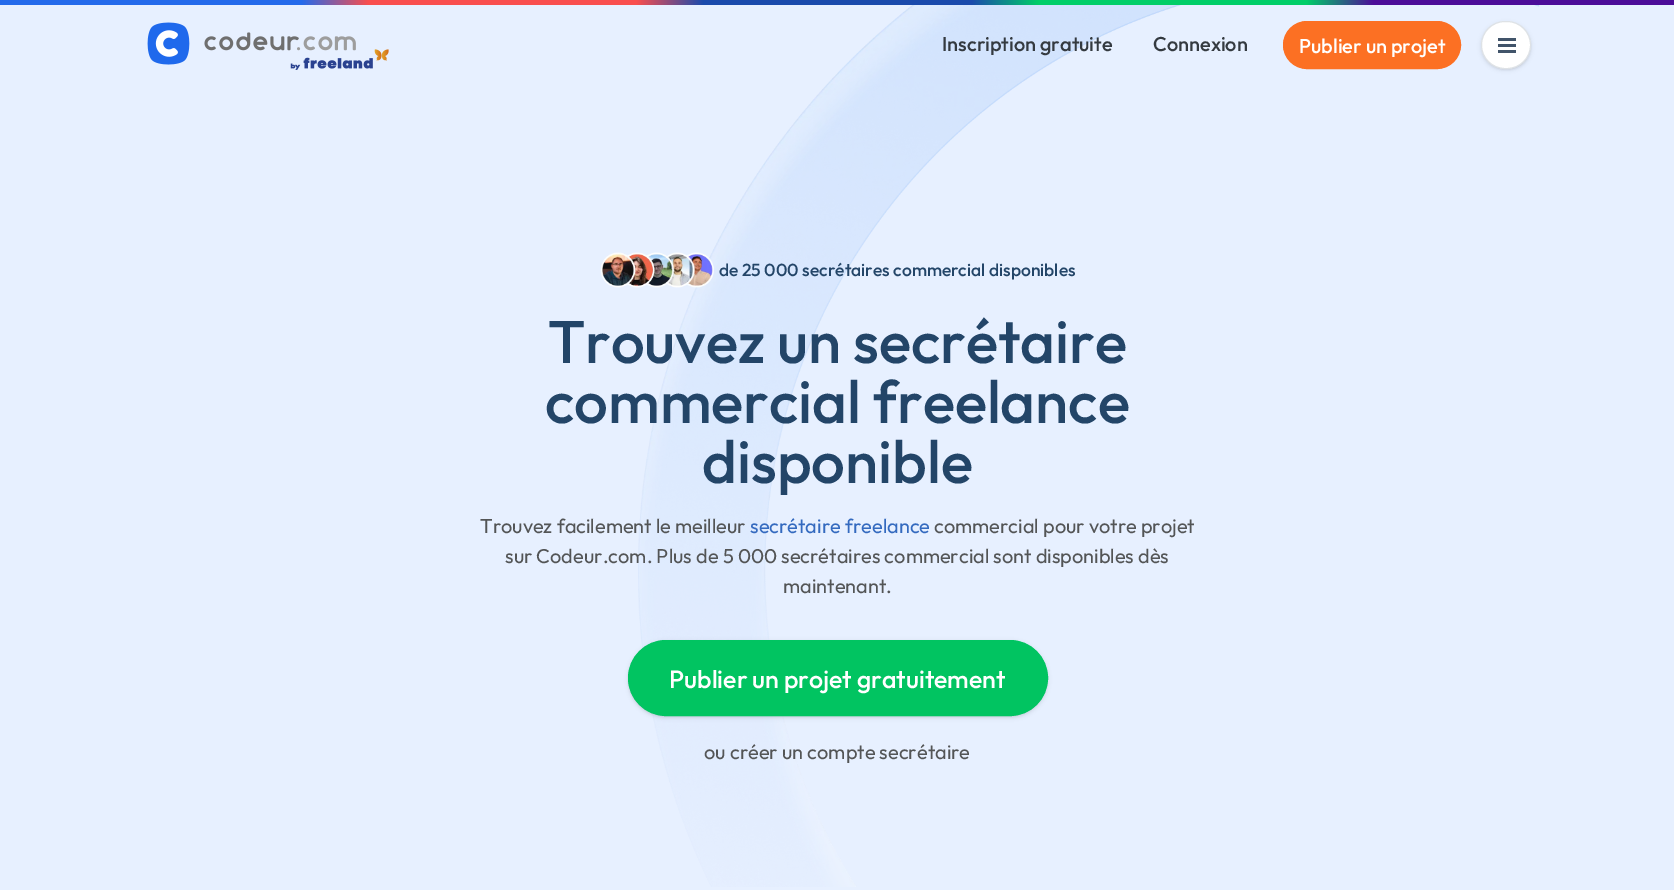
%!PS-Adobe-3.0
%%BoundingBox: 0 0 1674 890
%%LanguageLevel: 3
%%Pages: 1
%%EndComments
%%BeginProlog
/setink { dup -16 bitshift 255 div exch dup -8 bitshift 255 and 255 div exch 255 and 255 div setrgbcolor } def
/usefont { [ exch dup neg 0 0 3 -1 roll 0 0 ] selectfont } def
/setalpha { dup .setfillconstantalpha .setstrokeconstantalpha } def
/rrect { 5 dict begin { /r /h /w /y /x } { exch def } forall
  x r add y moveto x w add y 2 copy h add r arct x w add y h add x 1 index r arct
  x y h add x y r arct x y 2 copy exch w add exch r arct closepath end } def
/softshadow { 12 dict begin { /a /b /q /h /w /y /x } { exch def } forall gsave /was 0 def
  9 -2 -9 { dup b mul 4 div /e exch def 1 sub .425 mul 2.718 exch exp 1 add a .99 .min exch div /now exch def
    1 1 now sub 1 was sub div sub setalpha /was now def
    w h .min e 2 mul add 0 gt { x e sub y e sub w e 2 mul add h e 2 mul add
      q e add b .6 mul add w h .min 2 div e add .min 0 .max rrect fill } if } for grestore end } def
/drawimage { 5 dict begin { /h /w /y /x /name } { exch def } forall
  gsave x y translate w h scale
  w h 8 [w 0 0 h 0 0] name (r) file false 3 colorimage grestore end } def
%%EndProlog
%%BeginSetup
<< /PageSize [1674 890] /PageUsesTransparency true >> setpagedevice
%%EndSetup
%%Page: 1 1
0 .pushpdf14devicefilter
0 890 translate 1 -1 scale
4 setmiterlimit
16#E7F0FF setink
0 0 1674 890 rectfill
gsave 0 0 moveto 1674 0 lineto 1674 5 lineto 0 5 lineto closepath clip newpath
<< /ShadingType 2 /ColorSpace /DeviceRGB /Coords [0 2.5 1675 2.5] /Extend [true true] /Function << /FunctionType 3 /Domain [0 1] /Functions [<< /FunctionType 2 /Domain [0 1] /C0 [0.141 0.416 0.922] /C1 [0.141 0.416 0.922] /N 1 >> << /FunctionType 2 /Domain [0 1] /C0 [0.141 0.416 0.922] /C1 [0.976 0.306 0.306] /N 1 >> << /FunctionType 2 /Domain [0 1] /C0 [0.976 0.306 0.306] /C1 [0.976 0.306 0.306] /N 1 >> << /FunctionType 2 /Domain [0 1] /C0 [0.976 0.306 0.306] /C1 [0.102 0.29 0.675] /N 1 >> << /FunctionType 2 /Domain [0 1] /C0 [0.102 0.29 0.675] /C1 [0.102 0.29 0.675] /N 1 >> << /FunctionType 2 /Domain [0 1] /C0 [0.102 0.29 0.675] /C1 [0.004 0.808 0.408] /N 1 >> << /FunctionType 2 /Domain [0 1] /C0 [0.004 0.808 0.408] /C1 [0.004 0.808 0.408] /N 1 >> << /FunctionType 2 /Domain [0 1] /C0 [0.004 0.808 0.408] /C1 [0.298 0.051 0.6] /N 1 >> << /FunctionType 2 /Domain [0 1] /C0 [0.298 0.051 0.6] /C1 [0.298 0.051 0.6] /N 1 >>] /Bounds [0.18 0.22 0.38 0.42 0.58 0.62 0.78 0.82] /Encode [0 1 0 1 0 1 0 1 0 1 0 1 0 1 0 1 0 1] >> >> shfill grestore
(img1.raw) 147 22 242 48 drawimage
(img2.raw) 638 5 902 882 drawimage
/Outfit-Medium 20 usefont
16#343A40 setink
942 51 moveto (Inscription gratuite) show
1153 51 moveto (Connexion) show
16#FC7023 setink
1283.5 21.5 177 47 23.5 rrect gsave fill grestore
stroke
16#FFFFFF setink
1299 53 moveto (Publier un projet) show
16#000000 setink
1483 24 47 45 22.5 1 0.1 softshadow
1481 23 50 47 23.5 2 0.1 softshadow
16#FFFFFF setink
1481.5 21.5 49 47 23.5 rrect gsave fill grestore
16#DEE2E6 setink
stroke
[
    [1498 38 18 3 16#41546A]
    [1498 44 18 3 16#41546A]
    [1498 50 18 3 16#41546A]
] { aload pop setink rectfill } forall
(img3.raw) 600 252 114 36 drawimage
/Outfit-Medium 17.5 usefont
16#234568 setink
719 276 moveto (de 25 000 secrétaires commercial disponibles) show
/Outfit-Medium 60 usefont
[
    [(Trouvez un secrétaire) 548 363]
    [(commercial freelance) 545 423]
    [(disponible) 702 483]
] { aload pop moveto show } forall
/Outfit-Regular 20 usefont
16#535556 setink
480 533 moveto (Trouvez facilement le meilleur) show
16#346ABF setink
750 533 moveto (secrétaire freelance) show
16#535556 setink
[
    [(commercial pour votre projet) 934 533]
    [(sur Codeur.com. Plus de 5 000 secrétaires commercial sont disponibles dès) 505 563]
    [(maintenant.) 783 593]
] { aload pop moveto show } forall
16#000000 setink
629 643 417 73 36.5 1 0.1 softshadow
628 641 420 77 38.5 2 0.1 softshadow
16#01C461 setink
628.5 640.5 419 75 37.5 rrect gsave fill grestore
stroke
/Outfit-Medium 25 usefont
16#FFFFFF setink
669 688 moveto (Publier un projet gratuitement) show
/Outfit-Regular 20 usefont
16#535556 setink
704 759 moveto (ou créer un compte secrétaire) show
.poppdf14devicefilter showpage
%%EOF
